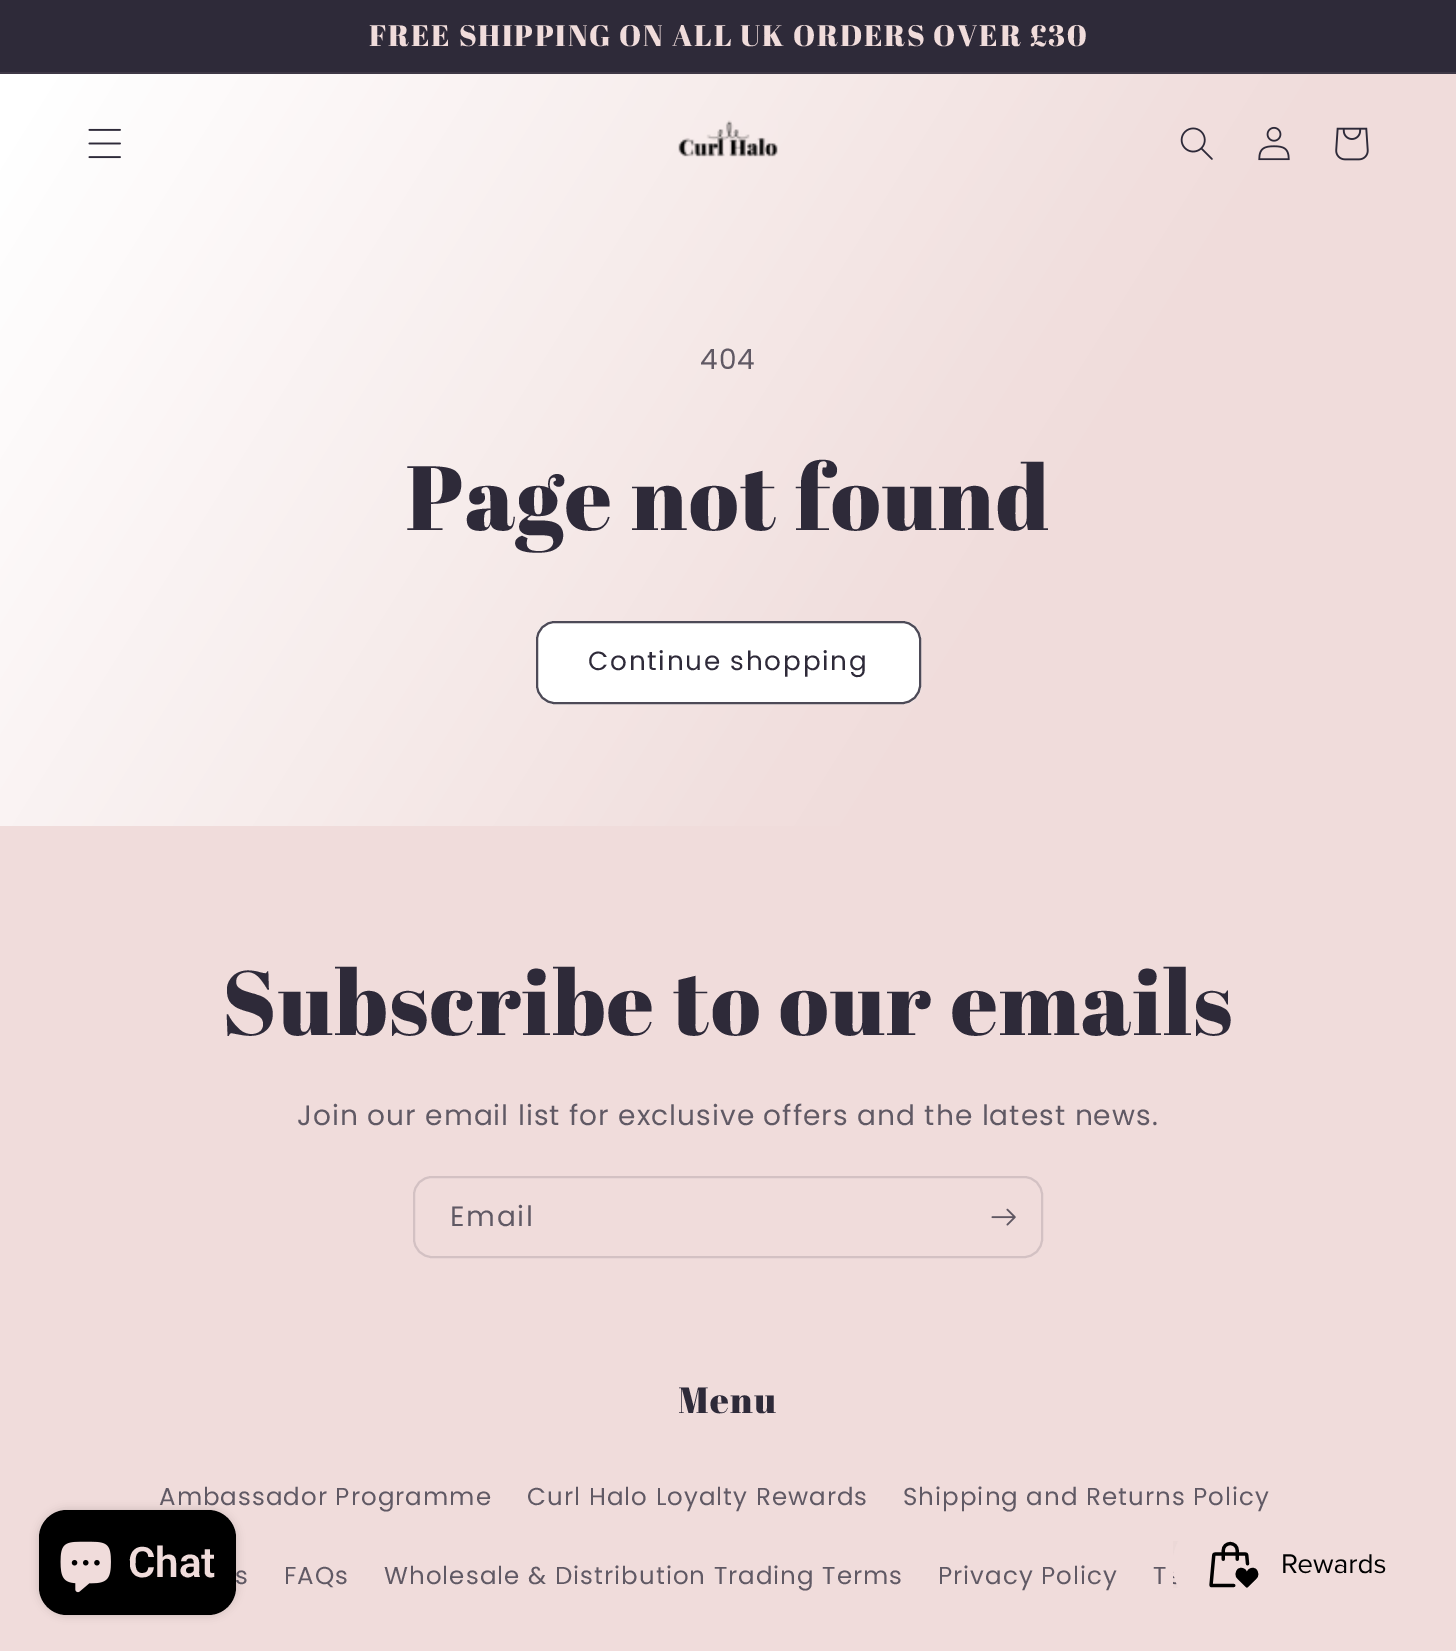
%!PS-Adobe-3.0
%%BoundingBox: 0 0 1456 1651
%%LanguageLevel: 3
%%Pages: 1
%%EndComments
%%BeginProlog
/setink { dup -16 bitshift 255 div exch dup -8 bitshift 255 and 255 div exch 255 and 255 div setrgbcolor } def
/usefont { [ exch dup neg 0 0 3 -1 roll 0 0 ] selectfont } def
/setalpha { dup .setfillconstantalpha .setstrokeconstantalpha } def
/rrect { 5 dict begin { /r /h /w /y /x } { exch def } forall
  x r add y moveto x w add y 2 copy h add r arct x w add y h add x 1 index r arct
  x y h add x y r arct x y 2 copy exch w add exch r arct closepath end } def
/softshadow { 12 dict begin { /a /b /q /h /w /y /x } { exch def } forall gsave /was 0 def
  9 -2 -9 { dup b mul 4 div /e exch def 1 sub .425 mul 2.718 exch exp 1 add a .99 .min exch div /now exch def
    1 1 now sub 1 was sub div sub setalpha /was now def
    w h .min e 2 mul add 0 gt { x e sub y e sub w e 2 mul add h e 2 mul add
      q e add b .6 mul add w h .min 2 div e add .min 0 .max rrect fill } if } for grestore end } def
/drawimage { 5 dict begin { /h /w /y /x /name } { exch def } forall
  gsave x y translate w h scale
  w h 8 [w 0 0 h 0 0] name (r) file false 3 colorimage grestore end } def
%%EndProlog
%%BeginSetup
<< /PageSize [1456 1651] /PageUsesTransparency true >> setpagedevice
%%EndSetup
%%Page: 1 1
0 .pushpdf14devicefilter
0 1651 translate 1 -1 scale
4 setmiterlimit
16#FFFFFF setink
0 0 1456 1651 rectfill
gsave 0 74 moveto 1456 74 lineto 1456 826 lineto 0 826 lineto closepath clip newpath
<< /ShadingType 2 /ColorSpace /DeviceRGB /Coords [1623 1385 -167 267] /Extend [true true] /Function << /FunctionType 3 /Domain [0 1] /Functions [<< /FunctionType 2 /Domain [0 1] /C0 [0.941 0.863 0.859] /C1 [0.941 0.863 0.859] /N 1 >> << /FunctionType 2 /Domain [0 1] /C0 [0.941 0.863 0.859] /C1 [1 1 1] /N 1 >> << /FunctionType 2 /Domain [0 1] /C0 [1 1 1] /C1 [1 1 1] /N 1 >>] /Bounds [0.45 0.96] /Encode [0 1 0 1 0 1] >> >> shfill grestore
16#2E2A39 setink
0 0 1456 72 rectfill
16#3E3846 setink
0 72 1456 2 rectfill
/AbrilFatface-Regular 29.6 usefont
16#F0DCDB setink
369 46 moveto 1.75 0 (FREE SHIPPING ON ALL UK ORDERS OVER £30) ashow
(img1.raw) 88 128 33 31 drawimage
(img2.raw) 678 120 100 37 drawimage
(img3.raw) 1180 127 33 33 drawimage
(img4.raw) 1258 126 32 35 drawimage
(img5.raw) 1335 127 34 34 drawimage
/Poppins-Regular 28 usefont
16#605964 setink
700 369 moveto 1.05 0 (404) ashow
/AbrilFatface-Regular 91 usefont
16#2E2A39 setink
406 530 moveto 1.4 0 (Page not found) ashow
16#FFFFFF setink
536 621 385 83 19 rrect fill
2 setlinewidth
537 622 383 81 18 rrect stroke
0.85 setalpha
16#2E2A39 setink
537 622 383 81 18 rrect stroke
/Poppins-Regular 26.25 usefont
1 setalpha
588 670 moveto 1.75 0 (Continue shopping) ashow
16#F0DCDB setink
0 826 1456 825 rectfill
/AbrilFatface-Regular 91 usefont
16#2E2A39 setink
222 1035 moveto 1.4 0 (Subscribe to our emails) ashow
/Poppins-Regular 28 usefont
16#605964 setink
297 1125 moveto 1.05 0 (Join our email list for exclusive offers and the latest news.) ashow
16#D3C1C3 setink
414 1177 628 80 18 rrect stroke
16#605964 setink
450 1226 moveto 1.75 0 (Email) ashow
(img6.raw) 991 1208 25 18 drawimage
/AbrilFatface-Regular 36.5 usefont
16#2E2A39 setink
678 1413 moveto 1.4 0 (Menu) ashow
/Poppins-Regular 24.5 usefont
16#605964 setink
159 1505 moveto 1.05 0 (Ambassador Programme) ashow
527 1505 moveto 1.05 0 (Curl Halo Loyalty Rewards) ashow
903 1505 moveto 1.05 0 (Shipping and Returns Policy) ashow
235 1584 moveto 1.05 0 (s) ashow
284 1584 moveto 1.05 0 (FAQs) ashow
384 1584 moveto 1.05 0 (Wholesale & Distribution Trading Terms) ashow
938 1584 moveto 1.05 0 (Privacy Policy) ashow
1153 1584 moveto 1.05 0 (T) ashow
(img7.raw) 1173 1541 213 47 drawimage
16#000000 setink
39 1510 197 105 28 4.5 0.15 softshadow
39 1510 197 105 28 rrect fill
(img8.raw) 60 1541 51 52 drawimage
/Roboto-SemiBold 42 usefont
16#F0DCDB setink
128 1577 moveto (Chat) show
.poppdf14devicefilter showpage
%%EOF
